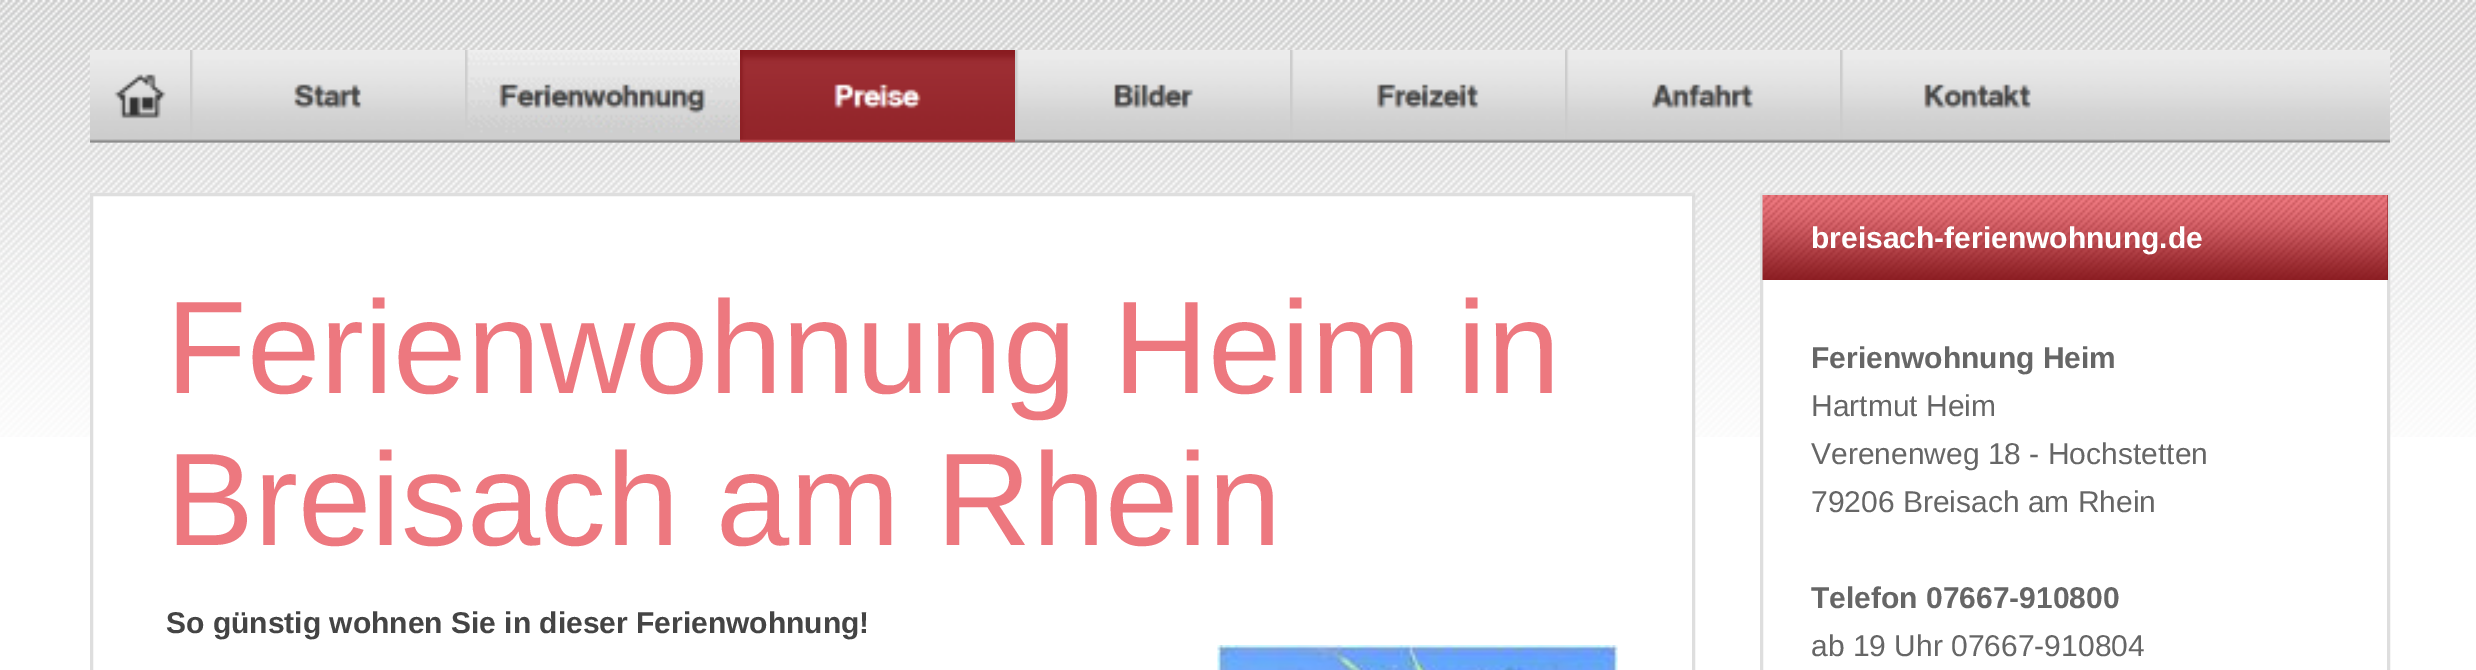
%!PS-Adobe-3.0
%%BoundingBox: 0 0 2476 670
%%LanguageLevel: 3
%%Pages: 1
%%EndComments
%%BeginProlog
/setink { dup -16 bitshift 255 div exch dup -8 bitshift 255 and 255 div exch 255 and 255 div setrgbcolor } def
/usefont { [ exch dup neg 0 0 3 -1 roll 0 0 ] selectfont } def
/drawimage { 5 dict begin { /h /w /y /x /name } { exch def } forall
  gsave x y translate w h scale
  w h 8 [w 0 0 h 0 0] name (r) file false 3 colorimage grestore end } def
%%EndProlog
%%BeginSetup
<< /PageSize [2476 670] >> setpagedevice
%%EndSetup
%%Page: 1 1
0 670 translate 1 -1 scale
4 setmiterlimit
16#FFFFFF setink
0 0 2476 670 rectfill
(img1.raw) 0 0 2476 437 drawimage
(img2.raw) 90 50 2300 93 drawimage
(img3.raw) 90 74 100 69 drawimage
(img4.raw) 190 50 275 93 drawimage
(img5.raw) 465 50 275 93 drawimage
(img6.raw) 740 50 275 93 drawimage
(img7.raw) 1015 50 275 93 drawimage
(img8.raw) 1290 50 275 93 drawimage
(img9.raw) 1565 50 275 93 drawimage
(img10.raw) 1840 50 275 93 drawimage
93 196 1599 241 rectfill
16#DEDEDE setink
3 setlinewidth
91.5 194.5 1602 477 rectstroke
/LiberationSans-Regular 132 usefont
16#ED787F setink
166 393 moveto (Ferienwohnung Heim in) show
166 545 moveto (Breisach am Rhein) show
/LiberationSans-Bold 30 usefont
16#444444 setink
166 633 moveto (So günstig wohnen Sie in dieser Ferienwohnung!) show
(img11.raw) 1217 645 401 25 drawimage
16#FFFFFF setink
1763 280 624 157 rectfill
16#DEDEDE setink
1761.5 194.5 627 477 rectstroke
16#82151A setink
2387 195 1 85 rectfill
(img12.raw) 1762 195 626 85 drawimage
16#FFFFFF setink
1811 248 moveto (breisach-ferienwohnung.de) show
16#666666 setink
1811 368 moveto (Ferienwohnung Heim) show
/LiberationSans-Regular 30 usefont
[
    [(Hartmut Heim) 1811 416]
    [(Verenenweg 18 - Hochstetten) 1811 464]
    [(79206 Breisach am Rhein) 1811 512]
] { aload pop moveto show } forall
/LiberationSans-Bold 30 usefont
1811 608 moveto (Telefon 07667-910800) show
/LiberationSans-Regular 30 usefont
1811 656 moveto (ab 19 Uhr 07667-910804) show
showpage
%%EOF
